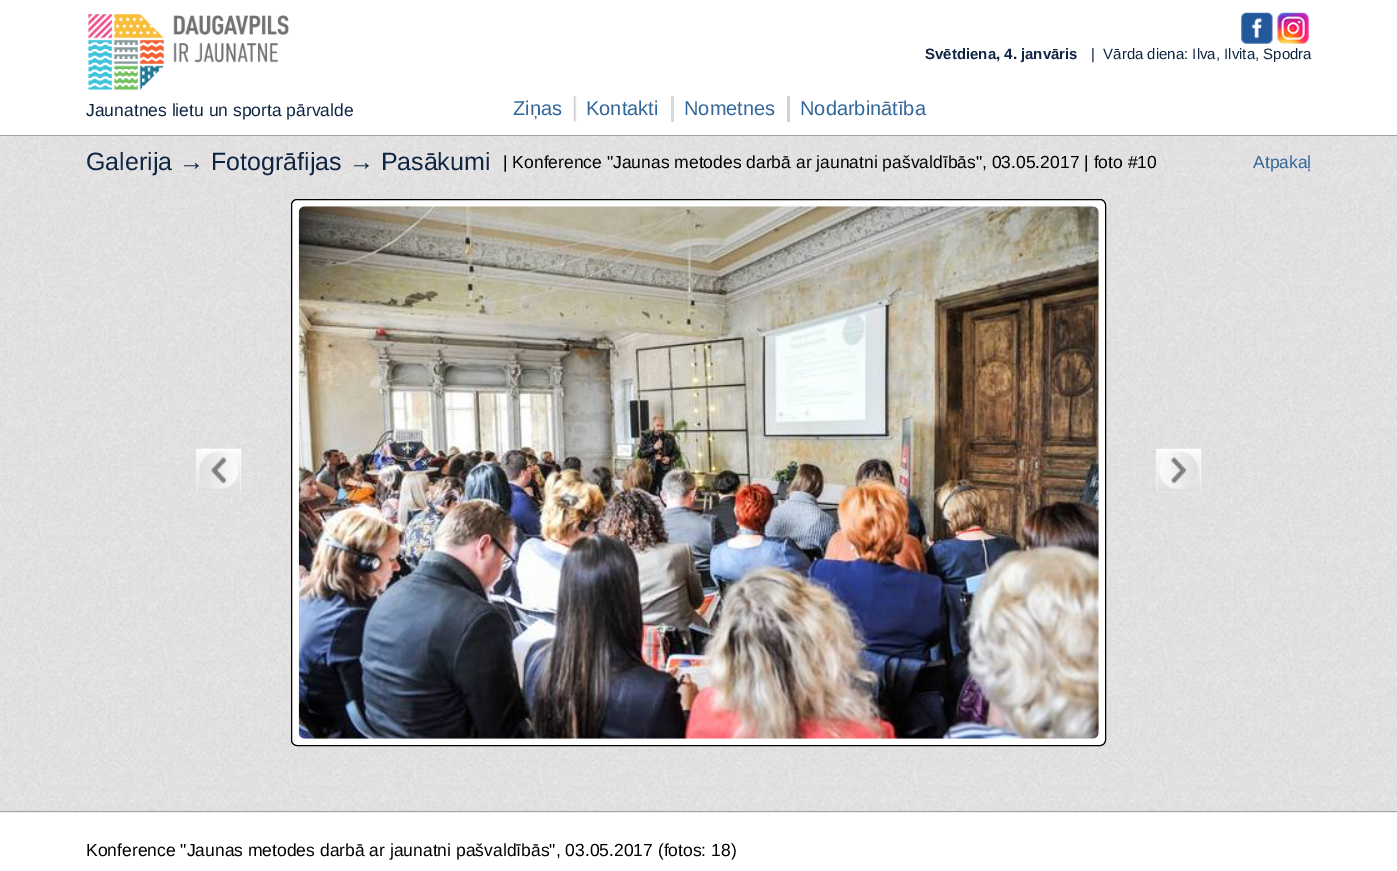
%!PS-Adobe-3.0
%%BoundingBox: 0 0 1397 871
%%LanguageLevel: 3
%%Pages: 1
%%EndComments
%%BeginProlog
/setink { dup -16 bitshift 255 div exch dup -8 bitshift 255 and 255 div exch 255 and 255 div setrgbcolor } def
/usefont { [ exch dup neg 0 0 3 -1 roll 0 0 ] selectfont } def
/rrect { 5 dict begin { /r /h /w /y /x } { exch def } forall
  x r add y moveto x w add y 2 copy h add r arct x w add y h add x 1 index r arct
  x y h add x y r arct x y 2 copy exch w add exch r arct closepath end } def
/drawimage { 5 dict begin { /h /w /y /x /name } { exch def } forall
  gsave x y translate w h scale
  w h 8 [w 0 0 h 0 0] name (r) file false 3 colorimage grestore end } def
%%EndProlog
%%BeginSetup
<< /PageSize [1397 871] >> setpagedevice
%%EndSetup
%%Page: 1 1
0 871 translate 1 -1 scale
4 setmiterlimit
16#FFFFFF setink
0 0 1397 871 rectfill
(img1.raw) 1241 12 32 32 drawimage
(img2.raw) 1277 12 32 32 drawimage
/LiberationSans-Bold 15 usefont
16#0E2542 setink
925 59 moveto (Svētdiena, 4. janvāris) show
/LiberationSans-Regular 15 usefont
1091 59 moveto (|  Vārda diena: Ilva, Ilvita, Spodra) show
(img3.raw) 88 14 201 76 drawimage
/LiberationSans-Regular 17.5 usefont
86 116 moveto (Jaunatnes lietu un sporta pārvalde) show
/LiberationSans-Regular 20 usefont
16#336699 setink
513 115 moveto (Ziņas) show
(img4.raw) 573 96 4 26 drawimage
586 115 moveto (Kontakti) show
16#D9D9D9 setink
671 96 3 26 rectfill
16#336699 setink
684 115 moveto (Nometnes) show
16#D2D2D2 setink
787 96 3 26 rectfill
16#336699 setink
800 115 moveto (Nodarbinātība) show
(img5.raw) 0 136 1397 677 drawimage
16#A4A1A1 setink
0 135 1397 1 rectfill
0 811 1397 1 rectfill
/LiberationSans-Regular 25 usefont
16#0E2542 setink
86 170 moveto (Galerija → Fotogrāfijas → Pasākumi) show
/LiberationSans-Regular 17.5 usefont
16#000000 setink
503 168 moveto (| Konference "Jaunas metodes darbā ar jaunatni pašvaldībās", 03.05.2017 | foto #10) show
16#336699 setink
1253 168 moveto (Atpakaļ) show
(img6.raw) 196 448 46 45 drawimage
16#FFFFFF setink
291.5 199.5 814 546 5.5 rrect gsave fill grestore
16#000000 setink
stroke
(img7.raw) 298 206 801 533 drawimage
(img8.raw) 1156 448 46 45 drawimage
86 856 moveto (Konference "Jaunas metodes darbā ar jaunatni pašvaldībās", 03.05.2017 \(fotos: 18\)) show
showpage
%%EOF
